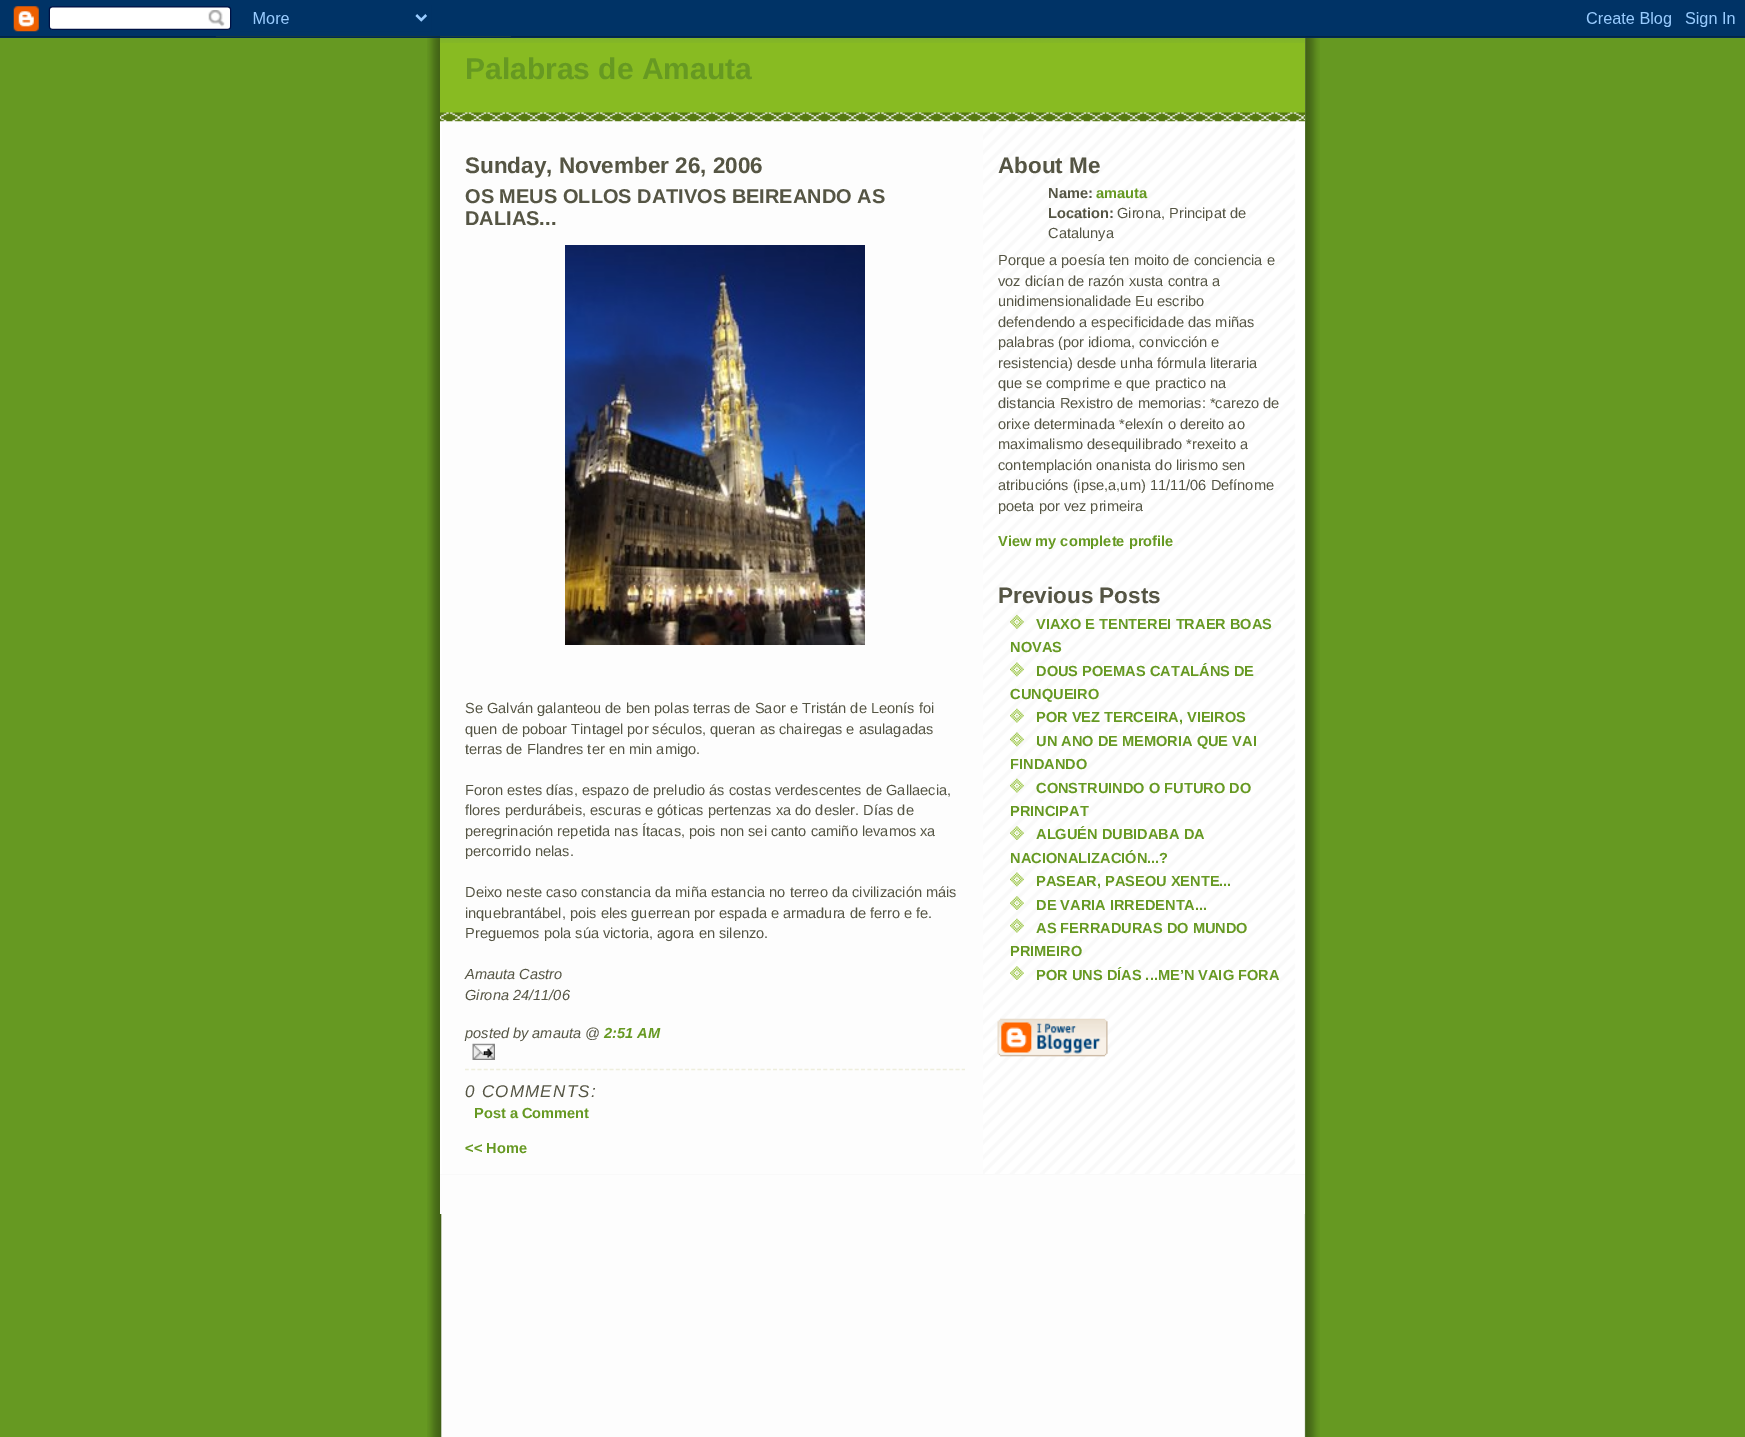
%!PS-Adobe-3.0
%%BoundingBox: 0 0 1745 1437
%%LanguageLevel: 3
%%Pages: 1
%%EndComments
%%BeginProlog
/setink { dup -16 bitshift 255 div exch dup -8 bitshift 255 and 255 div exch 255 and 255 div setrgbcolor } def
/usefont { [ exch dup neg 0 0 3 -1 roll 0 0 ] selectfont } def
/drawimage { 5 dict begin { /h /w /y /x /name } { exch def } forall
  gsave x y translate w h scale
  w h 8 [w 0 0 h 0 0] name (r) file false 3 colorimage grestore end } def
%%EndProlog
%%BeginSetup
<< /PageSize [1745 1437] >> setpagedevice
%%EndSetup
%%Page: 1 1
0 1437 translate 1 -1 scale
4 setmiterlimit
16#669922 setink
0 0 1745 1437 rectfill
(img1.raw) 427 36 893 1401 drawimage
(img5.raw) 440 36 865 7 drawimage
(img2.raw) 0 0 1745 38 drawimage
16#FFFFFF setink
440 121 2 1053 rectfill
(img3.raw) 983 121 322 1053 drawimage
16#88BB22 setink
440 43 865 69 rectfill
(img4.raw) 440 112 865 10 drawimage
/LiberationSans-Bold 30 usefont
16#669922 setink
465 79 moveto (Palabras de Amauta) show
/LiberationSans-Bold 22.5 usefont
16#555544 setink
465 173 moveto (Sunday, November 26, 2006) show
/LiberationSans-Bold 20 usefont
465 203 moveto (OS MEUS OLLOS DATIVOS BEIREANDO AS) show
465 225 moveto (DALIAS...) show
(img6.raw) 565 245 300 400 drawimage
/LiberationSans-Regular 14.6 usefont
[
    [(Se Galván galanteou de ben polas terras de Saor e Tristán de Leonís foi) 465 713]
    [(quen de poboar Tintagel por séculos, queran as chairegas e asulagadas) 465 734]
    [(terras de Flandres ter en min amigo.) 465 754]
    [(Foron estes días, espazo de preludio ás costas verdescentes de Gallaecia,) 465 795]
    [(flores perdurábeis, escuras e góticas pertenzas xa do desler. Días de) 465 815]
    [(peregrinación repetida nas Ítacas, pois non sei canto camiño levamos xa) 465 836]
    [(percorrido nelas.) 465 856]
    [(Deixo neste caso constancia da miña estancia no terreo da civilización máis) 465 897]
    [(inquebrantábel, pois eles guerrean por espada e armadura de ferro e fe.) 465 918]
    [(Preguemos pola súa victoria, agora en silenzo.) 465 938]
] { aload pop moveto show } forall
/LiberationSans-Italic 14.6 usefont
[
    [(Amauta Castro) 465 979]
    [(Girona 24/11/06) 465 1000]
    [(posted by amauta @) 465 1038]
] { aload pop moveto show } forall
/LiberationSans-BoldItalic 14.6 usefont
16#669922 setink
604 1038 moveto (2:51 AM) show
(img7.raw) 472 1043 23 17 drawimage
16#EEEEDD setink
1.2 setlinewidth
[3.75 2.54] 0 setdash
465 1069.5 moveto 965 1069.5 lineto stroke
/LiberationSans-Italic 17 usefont
16#555544 setink
465 1097 moveto 1.25 0 (0 COMMENTS:) ashow
/LiberationSans-Bold 14.6 usefont
16#669922 setink
474 1118 moveto (Post a Comment) show
465 1153 moveto (<< Home) show
/LiberationSans-Bold 22.5 usefont
16#555544 setink
998 173 moveto (About Me) show
/LiberationSans-Bold 14.6 usefont
1048 198 moveto (Name:) show
16#669922 setink
1096 198 moveto (amauta) show
16#555544 setink
1048 218 moveto (Location:) show
/LiberationSans-Regular 14.6 usefont
[
    [(Girona, Principat de) 1117 218]
    [(Catalunya) 1048 238]
    [(Porque a poesía ten moito de conciencia e) 998 265]
    [(voz dicían de razón xusta contra a) 998 286]
    [(unidimensionalidade Eu escribo) 998 306]
    [(defendendo a especificidade das miñas) 998 327]
    [(palabras \(por idioma, convicción e) 998 347]
    [(resistencia\) desde unha fórmula literaria) 998 368]
    [(que se comprime e que practico na) 998 388]
    [(distancia Rexistro de memorias: *carezo de) 998 408]
    [(orixe determinada *elexín o dereito ao) 998 429]
    [(maximalismo desequilibrado *rexeito a) 998 449]
    [(contemplación onanista do lirismo sen) 998 470]
    [(atribucións \(ipse,a,um\) 11/11/06 Defínome) 998 490]
    [(poeta por vez primeira) 998 511]
] { aload pop moveto show } forall
/LiberationSans-Bold 14.6 usefont
16#669922 setink
998 546 moveto (View my complete profile) show
/LiberationSans-Bold 22.5 usefont
16#555544 setink
998 603 moveto (Previous Posts) show
(img8.raw) 1010 614 14 15 drawimage
/LiberationSans-Bold 14.6 usefont
16#669922 setink
1036 629 moveto (VIAXO E TENTEREI TRAER BOAS) show
1010 652 moveto (NOVAS) show
(img9.raw) 1010 662 14 15 drawimage
1036 676 moveto (DOUS POEMAS CATALÁNS DE) show
1010 699 moveto (CUNQUEIRO) show
(img10.raw) 1010 708 14 15 drawimage
1036 722 moveto (POR VEZ TERCEIRA, VIEIROS) show
(img11.raw) 1010 732 14 15 drawimage
1036 746 moveto (UN ANO DE MEMORIA QUE VAI) show
1010 769 moveto (FINDANDO) show
(img12.raw) 1010 778 14 15 drawimage
1036 793 moveto (CONSTRUINDO O FUTURO DO) show
1010 816 moveto (PRINCIPAT) show
(img13.raw) 1010 826 14 14 drawimage
1036 839 moveto (ALGUÉN DUBIDABA DA) show
1010 863 moveto (NACIONALIZACIÓN...?) show
(img9.raw) 1010 872 14 15 drawimage
1036 886 moveto (PASEAR, PASEOU XENTE...) show
(img14.raw) 1010 896 14 14 drawimage
1036 910 moveto (DE VARIA IRREDENTA...) show
(img10.raw) 1010 918 14 15 drawimage
1036 933 moveto (AS FERRADURAS DO MUNDO) show
1010 956 moveto (PRIMEIRO) show
(img15.raw) 1010 966 14 14 drawimage
1036 980 moveto (POR UNS DÍAS ...ME’N VAIG FORA) show
(img16.raw) 997 1018 111 39 drawimage
16#FDFDFD setink
440 1175 865 39 rectfill
16#F9F9F9 setink
440 1174 865 1 rectfill
showpage
%%EOF
